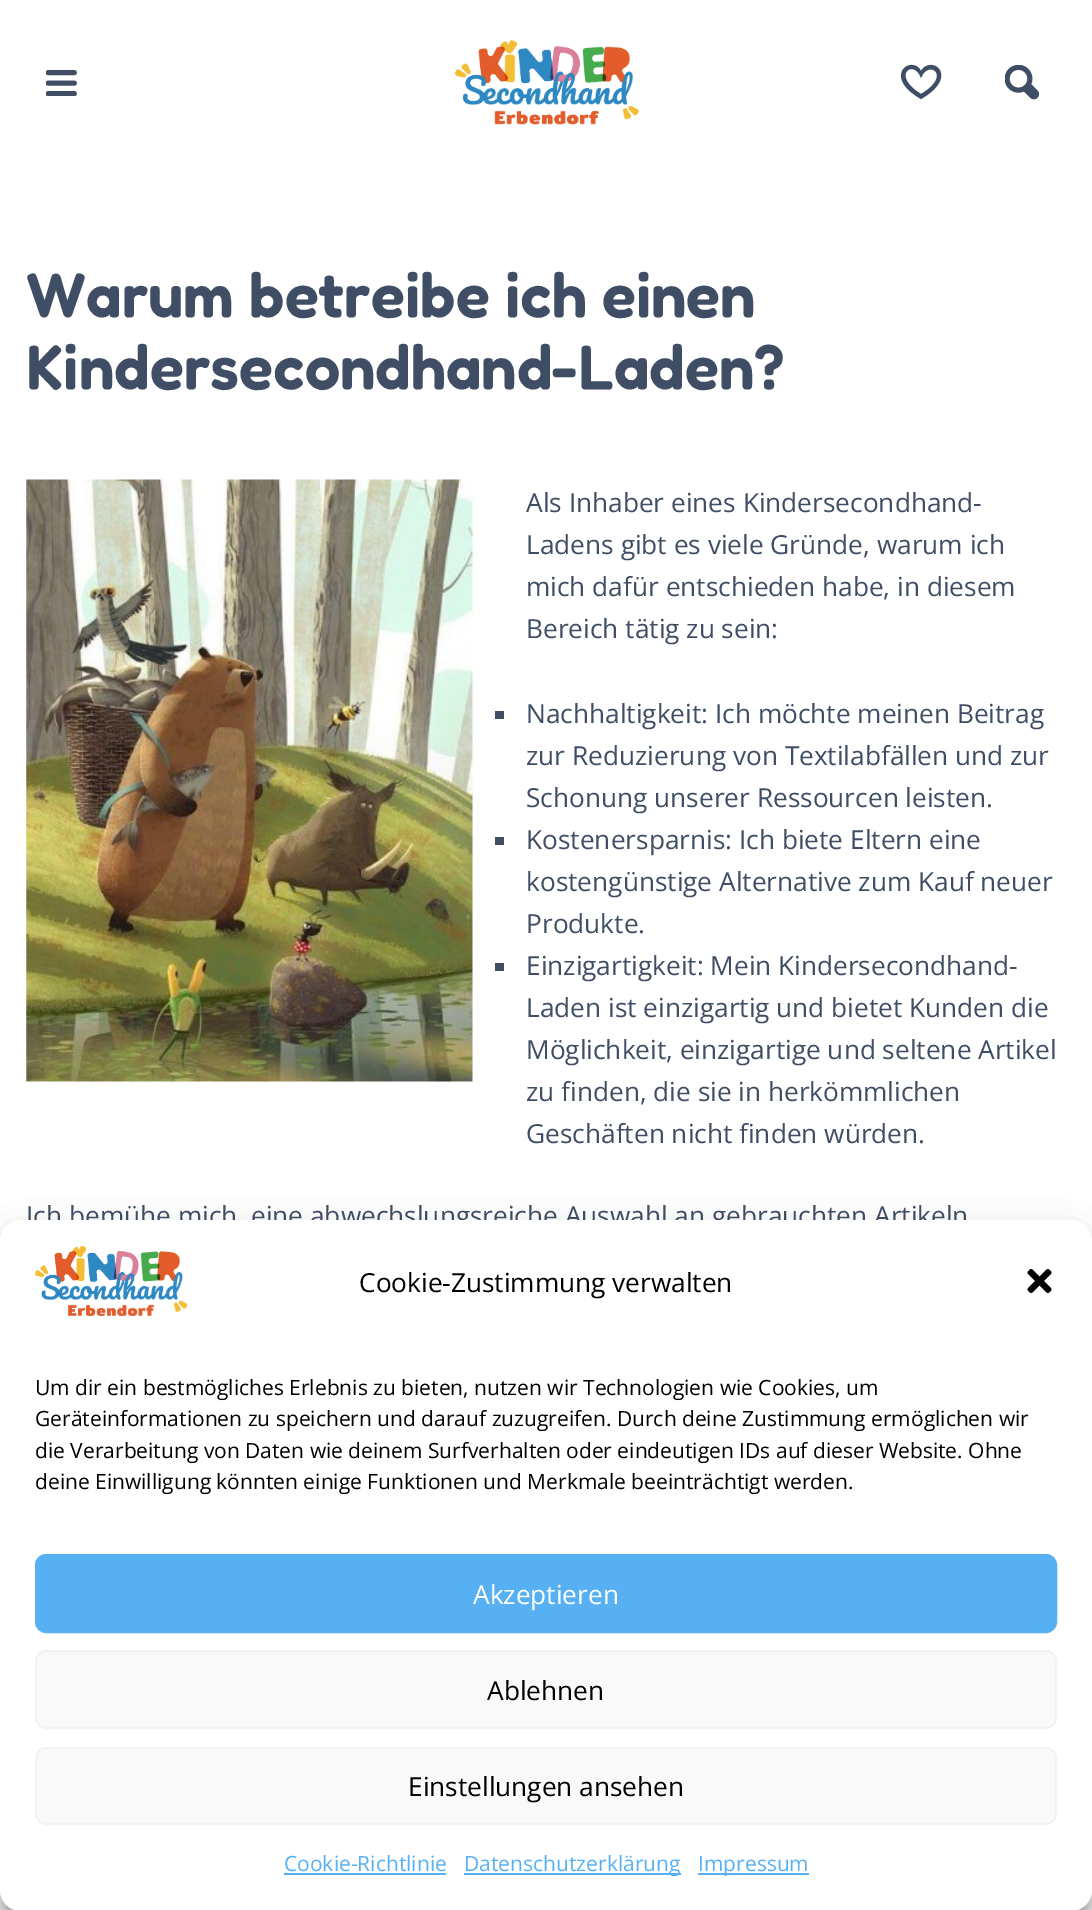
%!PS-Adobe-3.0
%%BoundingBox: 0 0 1092 1910
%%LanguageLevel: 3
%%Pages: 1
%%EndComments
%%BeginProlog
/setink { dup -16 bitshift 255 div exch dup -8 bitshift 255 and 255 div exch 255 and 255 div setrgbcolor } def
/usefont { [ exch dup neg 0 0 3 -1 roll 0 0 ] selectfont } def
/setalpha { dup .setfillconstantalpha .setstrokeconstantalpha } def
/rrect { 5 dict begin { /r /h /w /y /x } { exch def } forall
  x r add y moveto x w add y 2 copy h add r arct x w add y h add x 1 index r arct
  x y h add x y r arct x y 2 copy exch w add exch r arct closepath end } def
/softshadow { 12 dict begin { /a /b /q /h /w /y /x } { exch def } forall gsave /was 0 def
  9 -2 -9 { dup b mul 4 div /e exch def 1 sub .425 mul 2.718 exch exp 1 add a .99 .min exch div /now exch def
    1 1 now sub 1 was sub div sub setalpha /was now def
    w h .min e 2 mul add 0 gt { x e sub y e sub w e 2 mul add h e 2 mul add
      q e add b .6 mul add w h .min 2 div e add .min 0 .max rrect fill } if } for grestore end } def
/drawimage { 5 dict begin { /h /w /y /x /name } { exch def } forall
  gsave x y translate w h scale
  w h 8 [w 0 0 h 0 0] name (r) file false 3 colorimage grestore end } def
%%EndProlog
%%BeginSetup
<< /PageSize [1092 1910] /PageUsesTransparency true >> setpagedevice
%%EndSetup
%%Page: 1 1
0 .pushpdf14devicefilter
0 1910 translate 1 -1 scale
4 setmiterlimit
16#FFFFFF setink
0 0 1092 1910 rectfill
(img1.raw) 46 70 31 26 drawimage
(img2.raw) 455 40 184 85 drawimage
16#404E65 setink
921 78 moveto 921 71 lineto 912 54 881 76 921 99 curveto 921 94 lineto 890 75 914 58 921 78 curveto closepath 921 94 moveto 921 99 lineto 961 76 931 54 921 71 curveto 921 78 lineto 928 59 953 75 921 94 curveto closepath eofill
(img3.raw) 1005 65 35 35 drawimage
/Fredoka-SemiBold 63 usefont
26 317 moveto (Warum betreibe ich einen) show
26 389 moveto (Kindersecondhand-Laden?) show
(img4.raw) 26 479 447 603 drawimage
/OpenSans-Regular 26.25 usefont
[
    [(Als Inhaber eines Kindersecondhand-) 526 512]
    [(Ladens gibt es viele Gründe, warum ich) 526 554]
    [(mich dafür entschieden habe, in diesem) 526 596]
    [(Bereich tätig zu sein:) 526 638]
] { aload pop moveto show } forall
495 711 9 8 rectfill
[
    [(Nachhaltigkeit: Ich möchte meinen Beitrag) 526 723]
    [(zur Reduzierung von Textilabfällen und zur) 526 765]
    [(Schonung unserer Ressourcen leisten.) 526 807]
] { aload pop moveto show } forall
495 837 9 8 rectfill
[
    [(Kostenersparnis: Ich biete Eltern eine) 526 849]
    [(kostengünstige Alternative zum Kauf neuer) 526 891]
    [(Produkte.) 526 933]
] { aload pop moveto show } forall
495 963 9 8 rectfill
[
    [(Einzigartigkeit: Mein Kindersecondhand-) 526 975]
    [(Laden ist einzigartig und bietet Kunden die) 526 1017]
    [(Möglichkeit, einzigartige und seltene Artikel) 526 1059]
    [(zu finden, die sie in herkömmlichen) 526 1101]
    [(Geschäften nicht finden würden.) 526 1143]
    [(Ich bemühe mich, eine abwechslungsreiche Auswahl an gebrauchten Artikeln) 26 1225]
] { aload pop moveto show } forall
16#000000 setink
0 1230 1092 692 21 5 0.23 softshadow
0 1237 1092 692 21 17.5 0.19 softshadow
16#FFFFFF setink
0 1220 1092 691 21 rrect fill
(img5.raw) 35 1246 153 70 drawimage
16#000000 setink
359 1292 moveto (Cookie-Zustimmung verwalten) show
(img6.raw) 1027 1269 25 24 drawimage
/OpenSans-Regular 21 usefont
[
    [(Um dir ein bestmögliches Erlebnis zu bieten, nutzen wir Technologien wie Cookies, um) 35 1395]
    [(Geräteinformationen zu speichern und darauf zuzugreifen. Durch deine Zustimmung ermöglichen wir) 35 1426]
    [(die Verarbeitung von Daten wie deinem Surfverhalten oder eindeutigen IDs auf dieser Website. Ohne) 35 1458]
    [(deine Einwilligung könnten einige Funktionen und Merkmale beeinträchtigt werden.) 35 1489]
] { aload pop moveto show } forall
16#56B0F2 setink
36 1555 1020 77 10 rrect gsave fill grestore
2 setlinewidth
stroke
/OpenSans-Regular 26.25 usefont
16#FFFFFF setink
473 1604 moveto (Akzeptieren) show
16#F9F9F9 setink
36 1651 1020 77 10 rrect gsave fill grestore
16#F2F2F2 setink
stroke
16#000000 setink
487 1700 moveto (Ablehnen) show
16#F9F9F9 setink
36 1748 1020 76 10 rrect gsave fill grestore
16#F2F2F2 setink
stroke
16#000000 setink
408 1796 moveto (Einstellungen ansehen) show
/OpenSans-Regular 21 usefont
16#56B0F2 setink
284 1871 moveto (Cookie-Richtlinie) show
284 1873 162 2 rectfill
464 1873 217 2 rectfill
464 1871 moveto (Datenschutzerklärung) show
698 1873 111 2 rectfill
698 1871 moveto (Impressum) show
.poppdf14devicefilter showpage
%%EOF
